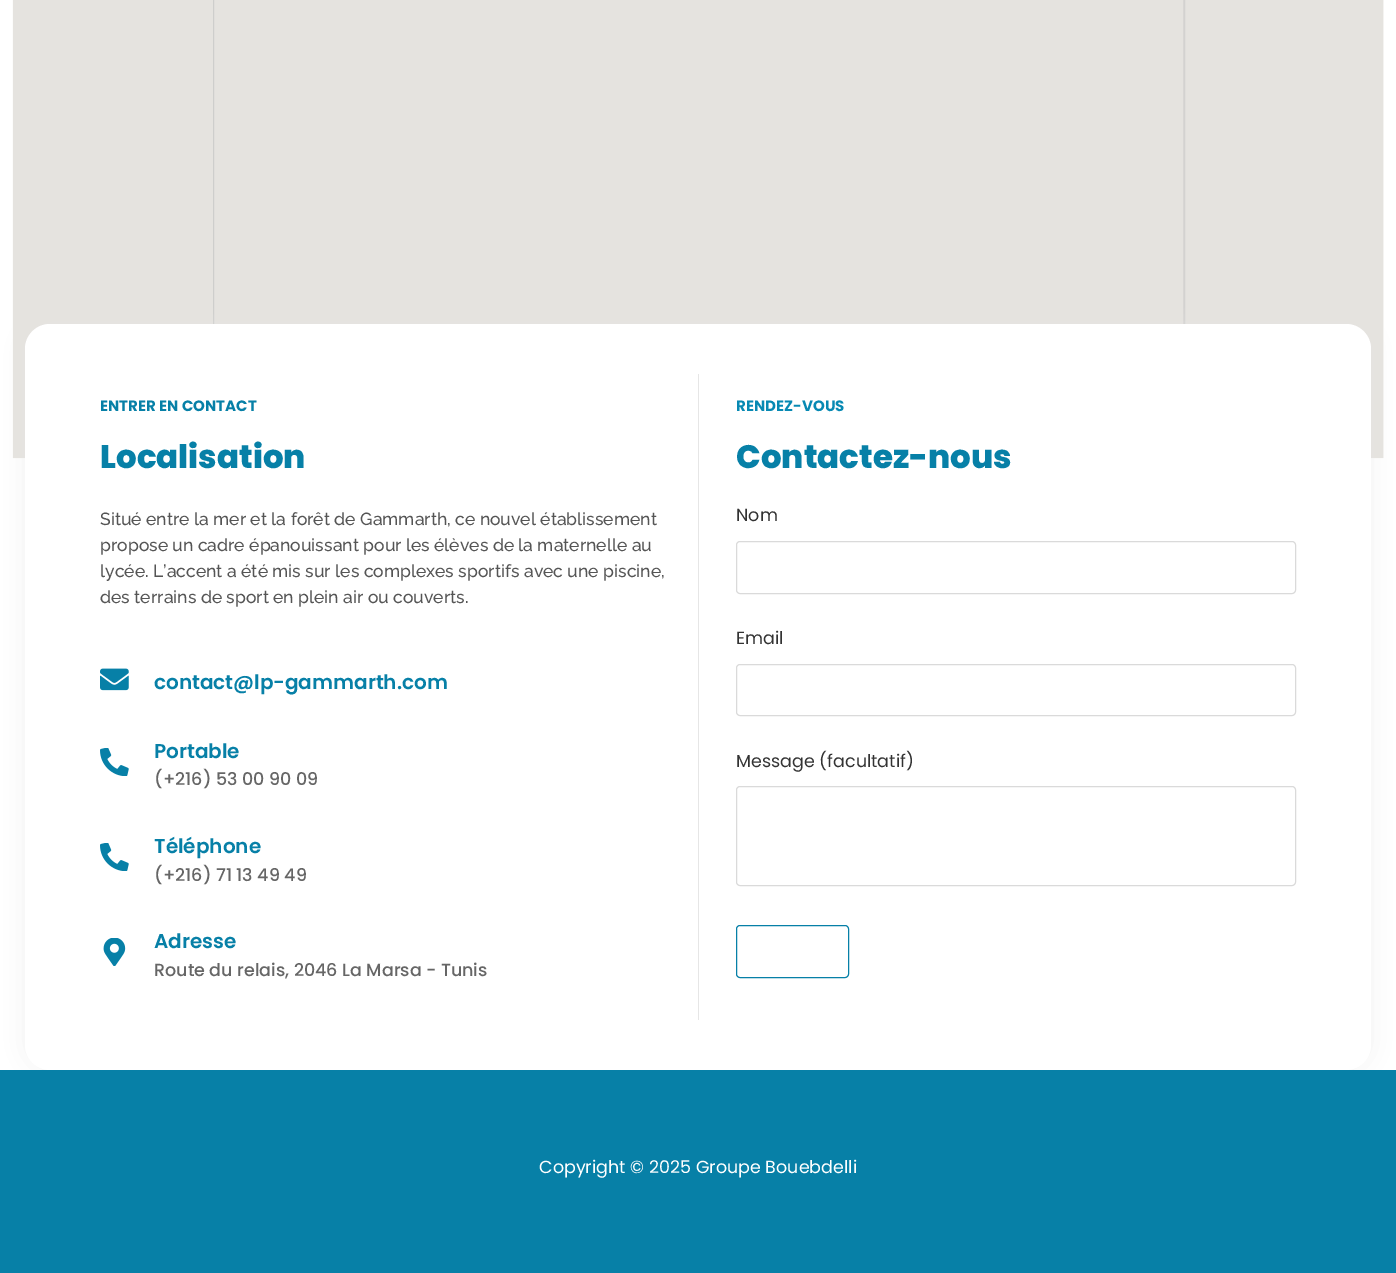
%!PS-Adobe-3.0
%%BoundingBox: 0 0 1396 1273
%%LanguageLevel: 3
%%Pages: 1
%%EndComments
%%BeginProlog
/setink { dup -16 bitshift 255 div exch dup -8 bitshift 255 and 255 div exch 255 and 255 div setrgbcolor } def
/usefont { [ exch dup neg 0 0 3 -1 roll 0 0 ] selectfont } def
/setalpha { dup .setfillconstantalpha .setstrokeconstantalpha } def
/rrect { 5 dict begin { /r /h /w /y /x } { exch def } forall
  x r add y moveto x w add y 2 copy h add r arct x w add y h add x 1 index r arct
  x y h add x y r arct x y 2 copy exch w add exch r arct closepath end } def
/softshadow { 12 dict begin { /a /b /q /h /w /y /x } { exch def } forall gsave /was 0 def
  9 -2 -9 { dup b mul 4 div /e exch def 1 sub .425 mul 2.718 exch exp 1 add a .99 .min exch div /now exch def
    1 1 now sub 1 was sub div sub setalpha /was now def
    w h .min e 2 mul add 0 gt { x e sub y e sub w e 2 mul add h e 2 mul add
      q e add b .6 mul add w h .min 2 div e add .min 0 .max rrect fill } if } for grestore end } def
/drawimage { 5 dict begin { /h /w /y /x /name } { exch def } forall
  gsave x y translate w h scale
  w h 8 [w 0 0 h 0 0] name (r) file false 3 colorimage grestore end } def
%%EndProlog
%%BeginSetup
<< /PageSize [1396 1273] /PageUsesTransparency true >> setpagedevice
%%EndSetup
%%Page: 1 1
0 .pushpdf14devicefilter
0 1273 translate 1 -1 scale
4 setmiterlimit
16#FFFFFF setink
0 0 1396 1273 rectfill
(img1.raw) 12 0 1372 459 drawimage
16#E4E4E4 setink
25 324 1346 746 25 12.5 0.5 softshadow
16#FFFFFF setink
25 324 1346 746 25 rrect fill
16#E6E6E6 setink
698 374 1 646 rectfill
/Poppins-Bold 15 usefont
16#0780A7 setink
100 411 moveto (ENTRER EN CONTACT) show
/Poppins-ExtraBold 32.5 usefont
100 468 moveto (Localisation) show
/Raleway-Medium 17.5 usefont
16#555555 setink
[
    [(Situé entre la mer et la forêt de Gammarth, ce nouvel établissement) 100 525]
    [(propose un cadre épanouissant pour les élèves de la maternelle au) 100 551]
    [(lycée. L’accent a été mis sur les complexes sportifs avec une piscine,) 100 577]
    [(des terrains de sport en plein air ou couverts.) 100 603]
] { aload pop moveto show } forall
(img2.raw) 100 668 29 23 drawimage
/Poppins-SemiBold 20 usefont
16#0780A7 setink
154 689 moveto (contact@lp-gammarth.com) show
(img3.raw) 100 748 29 28 drawimage
154 758 moveto (Portable) show
/Poppins-Medium 17.5 usefont
16#666666 setink
154 785 moveto (\(+216\) 53 00 90 09) show
(img3.raw) 100 843 29 28 drawimage
/Poppins-SemiBold 20 usefont
16#0780A7 setink
154 853 moveto (Téléphone) show
/Poppins-Medium 17.5 usefont
16#666666 setink
154 881 moveto (\(+216\) 71 13 49 49) show
(img4.raw) 103 938 23 28 drawimage
/Poppins-SemiBold 20 usefont
16#0780A7 setink
154 948 moveto (Adresse) show
/Poppins-Medium 17.5 usefont
16#666666 setink
154 976 moveto (Route du relais, 2046 La Marsa - Tunis) show
/Poppins-Bold 15 usefont
16#0789B3 setink
736 411 moveto (RENDEZ-VOUS) show
/Poppins-ExtraBold 32.5 usefont
16#0780A7 setink
736 468 moveto (Contactez-nous) show
/Poppins-Regular 17.5 usefont
16#333333 setink
736 521 moveto (Nom) show
16#DADADA setink
736.5 541.5 559 52 3.5 rrect stroke
16#333333 setink
736 644 moveto (Email) show
16#DADADA setink
736.5 664.5 559 51 3.5 rrect stroke
16#333333 setink
736 767 moveto (Message \(facultatif\)) show
16#DADADA setink
736.5 786.5 559 99 3.5 rrect stroke
16#0780A7 setink
736.5 925.5 112 52 3.5 rrect stroke
0 1070 1396 203 rectfill
16#FFFFFF setink
539 1173 moveto (Copyright © 2025 Groupe Bouebdelli) show
.poppdf14devicefilter showpage
%%EOF
